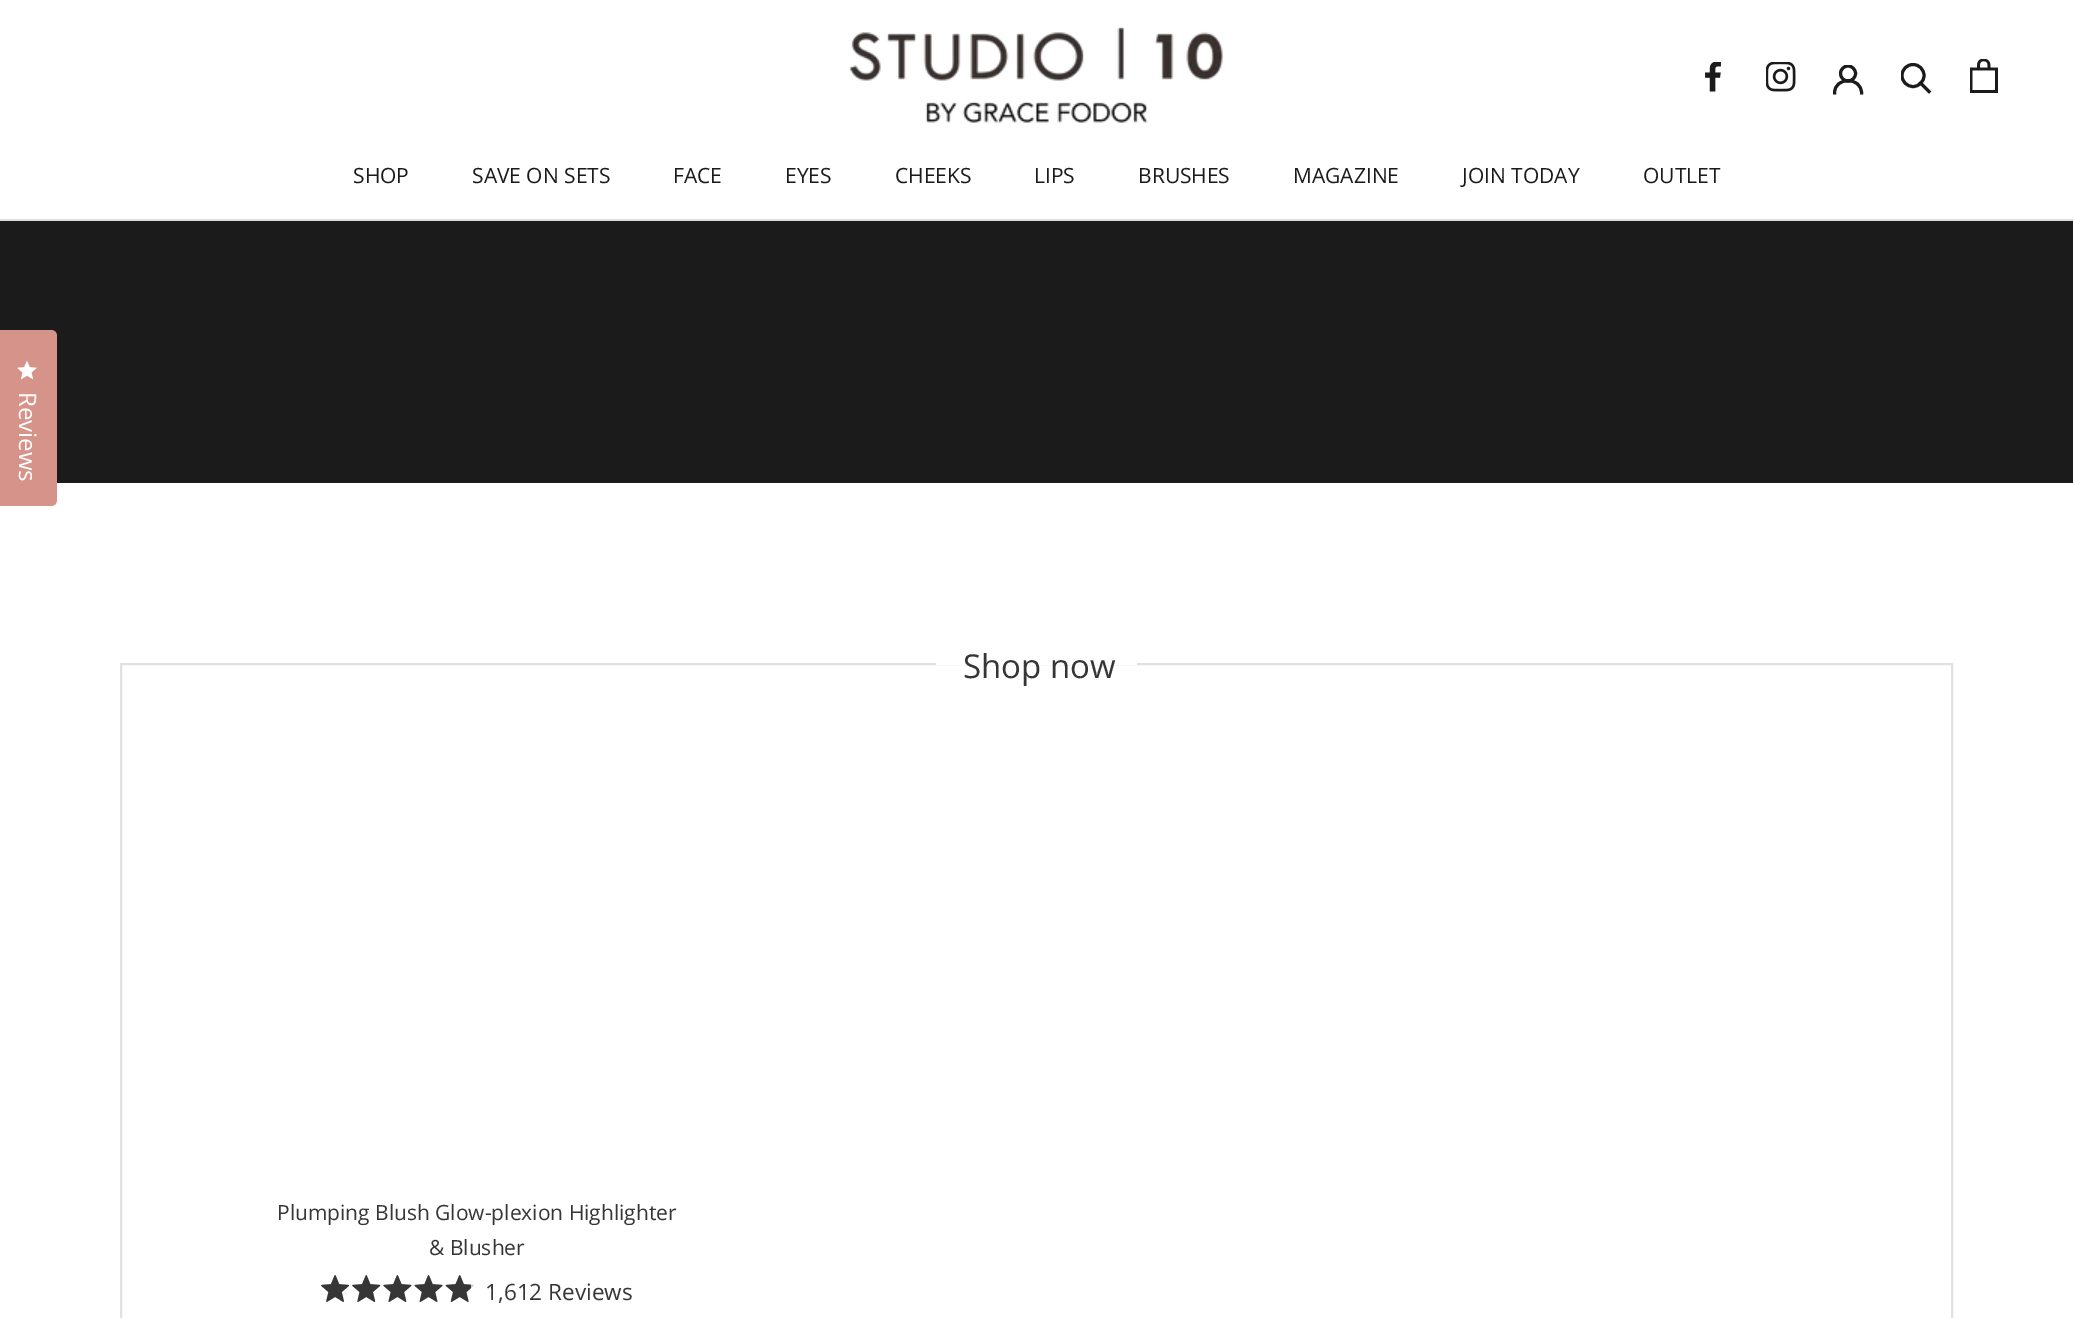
%!PS-Adobe-3.0
%%BoundingBox: 0 0 2073 1318
%%LanguageLevel: 3
%%Pages: 1
%%EndComments
%%BeginProlog
/setink { dup -16 bitshift 255 div exch dup -8 bitshift 255 and 255 div exch 255 and 255 div setrgbcolor } def
/usefont { [ exch dup neg 0 0 3 -1 roll 0 0 ] selectfont } def
/disc { newpath 0 360 arc closepath } def
/drawimage { 5 dict begin { /h /w /y /x /name } { exch def } forall
  gsave x y translate w h scale
  w h 8 [w 0 0 h 0 0] name (r) file false 3 colorimage grestore end } def
%%EndProlog
%%BeginSetup
<< /PageSize [2073 1318] >> setpagedevice
%%EndSetup
%%Page: 1 1
0 1318 translate 1 -1 scale
4 setmiterlimit
16#FFFFFF setink
0 0 2073 1318 rectfill
16#1C1B1B setink
0 221 2073 262 rectfill
16#D6938A setink
-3 330 moveto 51 330 lineto 54.5 330 57 332.5 57 336 curveto 57 500 lineto 57 503.5 54.5 506 51 506 curveto -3 506 lineto closepath fill
(img1.raw) 17 360 20 20 drawimage
/OpenSans-Regular 24 usefont
16#FFFFFF setink
gsave 19 392 translate 90.1 rotate 0 0 moveto (Reviews) show grestore
16#DDDDDD setink
0 219 2073 2 rectfill
(img2.raw) 849 27 374 96 drawimage
(img3.raw) 1705 62 16 30 drawimage
(img4.raw) 1766 62 30 30 drawimage
16#1C1B1B setink
3 setlinewidth
2 setlinecap
1834.5 93 moveto 1834.5 76.5 1861.5 76.5 1861.5 93 curveto stroke
gsave
1833 65 30 30 rectclip
0 setlinecap
1848 73.5 7.5 disc stroke
grestore
1929 91.5 moveto 1920.5 83 lineto stroke
gsave
1901 63 31 32 rectclip
0 setlinecap
1913 75.5 11 disc stroke
grestore
(img5.raw) 1970 59 28 34 drawimage
/OpenSans-Regular 21 usefont
[
    [(SHOP) 353 183]
    [(SAVE ON SETS) 472 183]
    [(FACE) 673 183]
    [(EYES) 785 183]
    [(CHEEKS) 895 183]
    [(LIPS) 1034 183]
    [(BRUSHES) 1138 183]
    [(MAGAZINE) 1293 183]
    [(JOIN TODAY) 1462 183]
    [(OUTLET) 1643 183]
] { aload pop moveto show } forall
16#E1E1E1 setink
2 setlinewidth
0 setlinecap
121 664 1831 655 rectstroke
16#FFFFFF setink
936 663 201 2 rectfill
/OpenSans-Regular 33 usefont
16#363636 setink
963 678 moveto (Shop now) show
/OpenSans-Regular 21 usefont
277 1220 moveto (Plumping Blush Glow-plexion Highlighter) show
429 1255 moveto (& Blusher) show
(img6.raw) 321 1275 153 27 drawimage
(img7.raw) 321 1275 150 27 drawimage
/OpenSans-Regular 22.5 usefont
485 1300 moveto (1,612 Reviews) show
showpage
%%EOF
